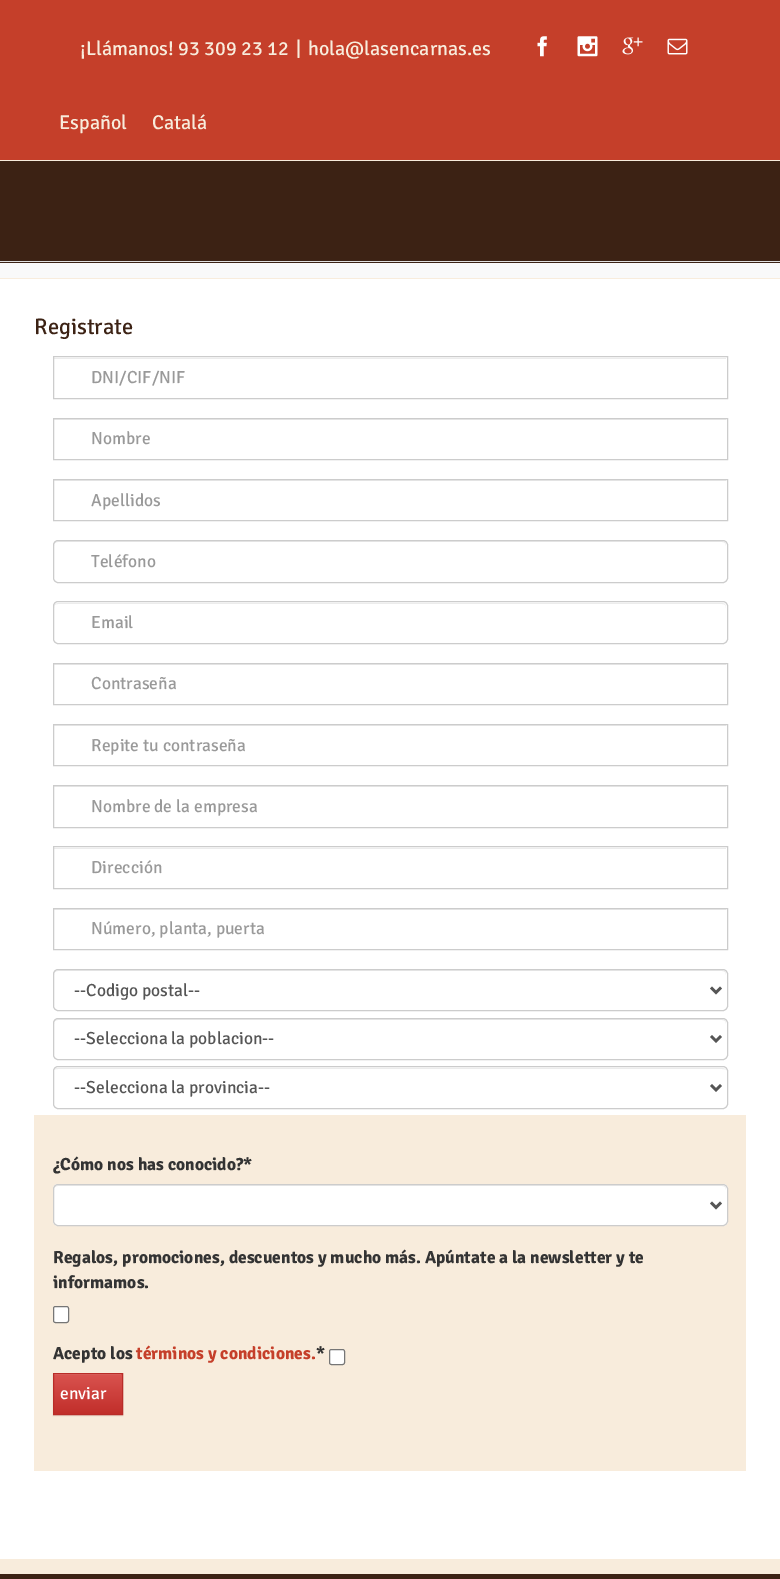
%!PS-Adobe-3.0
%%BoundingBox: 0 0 780 1579
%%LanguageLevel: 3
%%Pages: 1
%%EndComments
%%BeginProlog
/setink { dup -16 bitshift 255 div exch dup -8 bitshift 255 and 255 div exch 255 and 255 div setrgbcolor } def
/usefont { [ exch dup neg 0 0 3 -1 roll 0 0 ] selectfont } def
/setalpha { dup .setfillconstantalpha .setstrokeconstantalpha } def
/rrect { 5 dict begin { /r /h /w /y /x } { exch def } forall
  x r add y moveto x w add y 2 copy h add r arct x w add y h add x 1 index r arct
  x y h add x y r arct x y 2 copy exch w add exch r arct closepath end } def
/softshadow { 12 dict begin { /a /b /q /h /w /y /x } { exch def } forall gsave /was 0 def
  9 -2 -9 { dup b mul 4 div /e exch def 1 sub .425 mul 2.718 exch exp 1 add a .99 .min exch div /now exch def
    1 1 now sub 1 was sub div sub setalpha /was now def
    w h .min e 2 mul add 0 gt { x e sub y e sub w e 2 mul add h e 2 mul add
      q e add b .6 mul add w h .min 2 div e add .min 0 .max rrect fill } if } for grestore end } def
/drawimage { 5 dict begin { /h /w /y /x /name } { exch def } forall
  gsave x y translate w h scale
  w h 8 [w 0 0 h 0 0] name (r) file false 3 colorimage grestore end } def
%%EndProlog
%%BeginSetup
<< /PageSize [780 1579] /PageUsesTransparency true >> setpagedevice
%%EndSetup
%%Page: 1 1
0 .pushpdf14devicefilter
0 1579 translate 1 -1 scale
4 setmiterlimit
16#FFFFFF setink
0 0 780 1579 rectfill
16#C53F2A setink
0 0 780 160 rectfill
16#F8ECDC setink
0 160 780 1 rectfill
/Signika-Regular 20 usefont
[
    [(¡Llámanos! 93 309 23 12) 80 55]
    [(|) 296 55]
    [(hola@lasencarnas.es) 308 55]
] { aload pop moveto show } forall
(img1.raw) 537 36 10 21 drawimage
(img2.raw) 577 36 21 21 drawimage
(img3.raw) 622 37 21 18 drawimage
(img4.raw) 667 38 21 17 drawimage
59 129 moveto (Español) show
152 129 moveto (Catalá) show
[
    [0 161 780 102 16#3C2214]
    [0 261 780 1 16#E1E1E1]
    [0 263 780 15 16#F9F9F9]
    [0 278 780 1 16#F8ECDC]
] { aload pop setink rectfill } forall
/Signika-Regular 22.5 usefont
16#3C2214 setink
34 334 moveto (Registrate) show
16#ECECEC setink
54 358 672 1 rectfill
16#CCCCCC setink
53.5 356.5 674 42 rectstroke
/Signika-Regular 17.5 usefont
16#999999 setink
91 383 moveto (DNI/CIF/NIF) show
16#ECECEC setink
54 419 672 1 rectfill
16#CCCCCC setink
53.5 418.5 674 41 rectstroke
16#999999 setink
91 444 moveto (Nombre) show
16#ECECEC setink
54 480 672 1 rectfill
16#CCCCCC setink
53.5 479.5 674 41 rectstroke
16#999999 setink
91 506 moveto (Apellidos) show
16#ECECEC setink
58 542 moveto 722 542 lineto 725 542 726 544 726 546 curveto 726 543 725 541 722 541 curveto 58 541 lineto 55 542 lineto 54 543 lineto 54 546 lineto 54 544 55 542 58 542 curveto closepath fill
16#CCCCCC setink
53.5 540.5 674 42 4.5 rrect stroke
16#999999 setink
91 567 moveto (Teléfono) show
16#ECECEC setink
58 604 moveto 722 604 lineto 725 604 726 605 726 608 curveto 726 605 725 603 722 603 curveto 58 603 lineto 55 604 lineto 54 605 lineto 54 608 lineto 54 605 55 604 58 604 curveto closepath fill
16#CCCCCC setink
53.5 601.5 674 42 4.5 rrect stroke
16#999999 setink
91 628 moveto (Email) show
16#ECECEC setink
54 664 672 1 rectfill
16#CCCCCC setink
53.5 663.5 674 41 rectstroke
16#999999 setink
91 689 moveto (Contraseña) show
16#ECECEC setink
54 725 672 1 rectfill
16#CCCCCC setink
53.5 724.5 674 41 rectstroke
16#999999 setink
91 751 moveto (Repite tu contraseña) show
16#ECECEC setink
54 786 672 1 rectfill
16#CCCCCC setink
53.5 785.5 674 42 rectstroke
16#999999 setink
91 812 moveto (Nombre de la empresa) show
16#ECECEC setink
54 848 672 1 rectfill
16#CCCCCC setink
53.5 846.5 674 42 rectstroke
16#999999 setink
91 873 moveto (Dirección) show
16#ECECEC setink
54 909 672 1 rectfill
16#CCCCCC setink
53.5 908.5 674 41 rectstroke
16#999999 setink
91 934 moveto (Número, planta, puerta) show
16#ECECEC setink
58 971 moveto 722 971 lineto 725 971 726 973 726 975 curveto 726 972 725 970 722 970 curveto 58 970 lineto 55 971 lineto 54 972 lineto 54 975 lineto 54 973 55 971 58 971 curveto closepath fill
16#CCCCCC setink
53.5 969.5 674 41 4.5 rrect stroke
16#555555 setink
2.5 setlinewidth
711 987.5 moveto 716 992.5 lineto 721 987.5 lineto stroke
74 996 moveto (--Codigo postal--) show
16#ECECEC setink
58 1020 moveto 722 1020 lineto 725 1020 726 1022 726 1024 curveto 726 1021 725 1019 722 1019 curveto 58 1019 lineto 55 1020 lineto 54 1021 lineto 54 1024 lineto 54 1022 55 1020 58 1020 curveto closepath fill
16#CCCCCC setink
1 setlinewidth
53.5 1018.5 674 41 4.5 rrect stroke
16#555555 setink
2.5 setlinewidth
711 1036 moveto 716 1041 lineto 721 1036 lineto stroke
74 1044 moveto (--Selecciona la poblacion--) show
16#ECECEC setink
58 1069 moveto 722 1069 lineto 724 1069 725 1069 726 1070 curveto 725 1069 724 1068 722 1068 curveto 58 1068 lineto 56 1068 55 1069 54 1070 curveto 55 1069 56 1069 58 1069 curveto closepath fill
16#CCCCCC setink
1 setlinewidth
53.5 1066.5 674 42 4.5 rrect stroke
16#555555 setink
2.5 setlinewidth
711 1085 moveto 716 1090 lineto 721 1085 lineto stroke
74 1093 moveto (--Selecciona la provincia--) show
16#F8ECDC setink
34 1115 712 356 rectfill
/Signika-Bold 17.5 usefont
16#333333 setink
53 1170 moveto (¿Cómo nos has conocido?*) show
16#FFFFFF setink
53 1184 675 42 5 rrect fill
16#ECECEC setink
58 1186 moveto 722 1186 lineto 725 1186 726 1188 726 1190 curveto 726 1187 725 1185 722 1185 curveto 58 1185 lineto 55 1186 lineto 54 1187 lineto 54 1190 lineto 54 1188 55 1186 58 1186 curveto closepath fill
16#CCCCCC setink
1 setlinewidth
53.5 1184.5 674 41 4.5 rrect stroke
16#555555 setink
2.5 setlinewidth
711 1202.5 moveto 716 1207.5 lineto 721 1202.5 lineto stroke
16#333333 setink
53 1263 moveto (Regalos, promociones, descuentos y mucho más. Apúntate a la newsletter y te) show
53 1288 moveto (informamos.) show
16#FFFFFF setink
53.5 1306.5 15 16 2 rrect gsave fill grestore
16#767676 setink
1 setlinewidth
stroke
16#333333 setink
53 1359 moveto (Acepto los) show
16#C53F2A setink
136 1359 moveto (términos y condiciones.) show
16#333333 setink
316 1359 moveto (*) show
16#FFFFFF setink
329.5 1349.5 15 15 2 rrect gsave fill grestore
16#767676 setink
stroke
16#000000 setink
53 1374 70 42 0 0.5 0.07 softshadow
gsave 54 1374 moveto 122 1374 lineto 122 1414 lineto 54 1414 lineto closepath clip newpath
<< /ShadingType 2 /ColorSpace /DeviceRGB /Coords [88 1374 88 1414] /Extend [true true] /Function << /FunctionType 2 /Domain [0 1] /C0 [0.851 0.325 0.31] /C1 [0.757 0.18 0.165] /N 1 >> >> shfill grestore
16#DF6D69 setink
54 1374 67 1 rectfill
16#B92C28 setink
53.5 1373.5 69 41 rectstroke
/Signika-Regular 17.5 usefont
16#FFFFFF setink
60 1399 moveto (enviar) show
16#3C2214 setink
0 1574 780 5 rectfill
16#F8ECDC setink
0 1559 780 15 rectfill
.poppdf14devicefilter showpage
%%EOF
